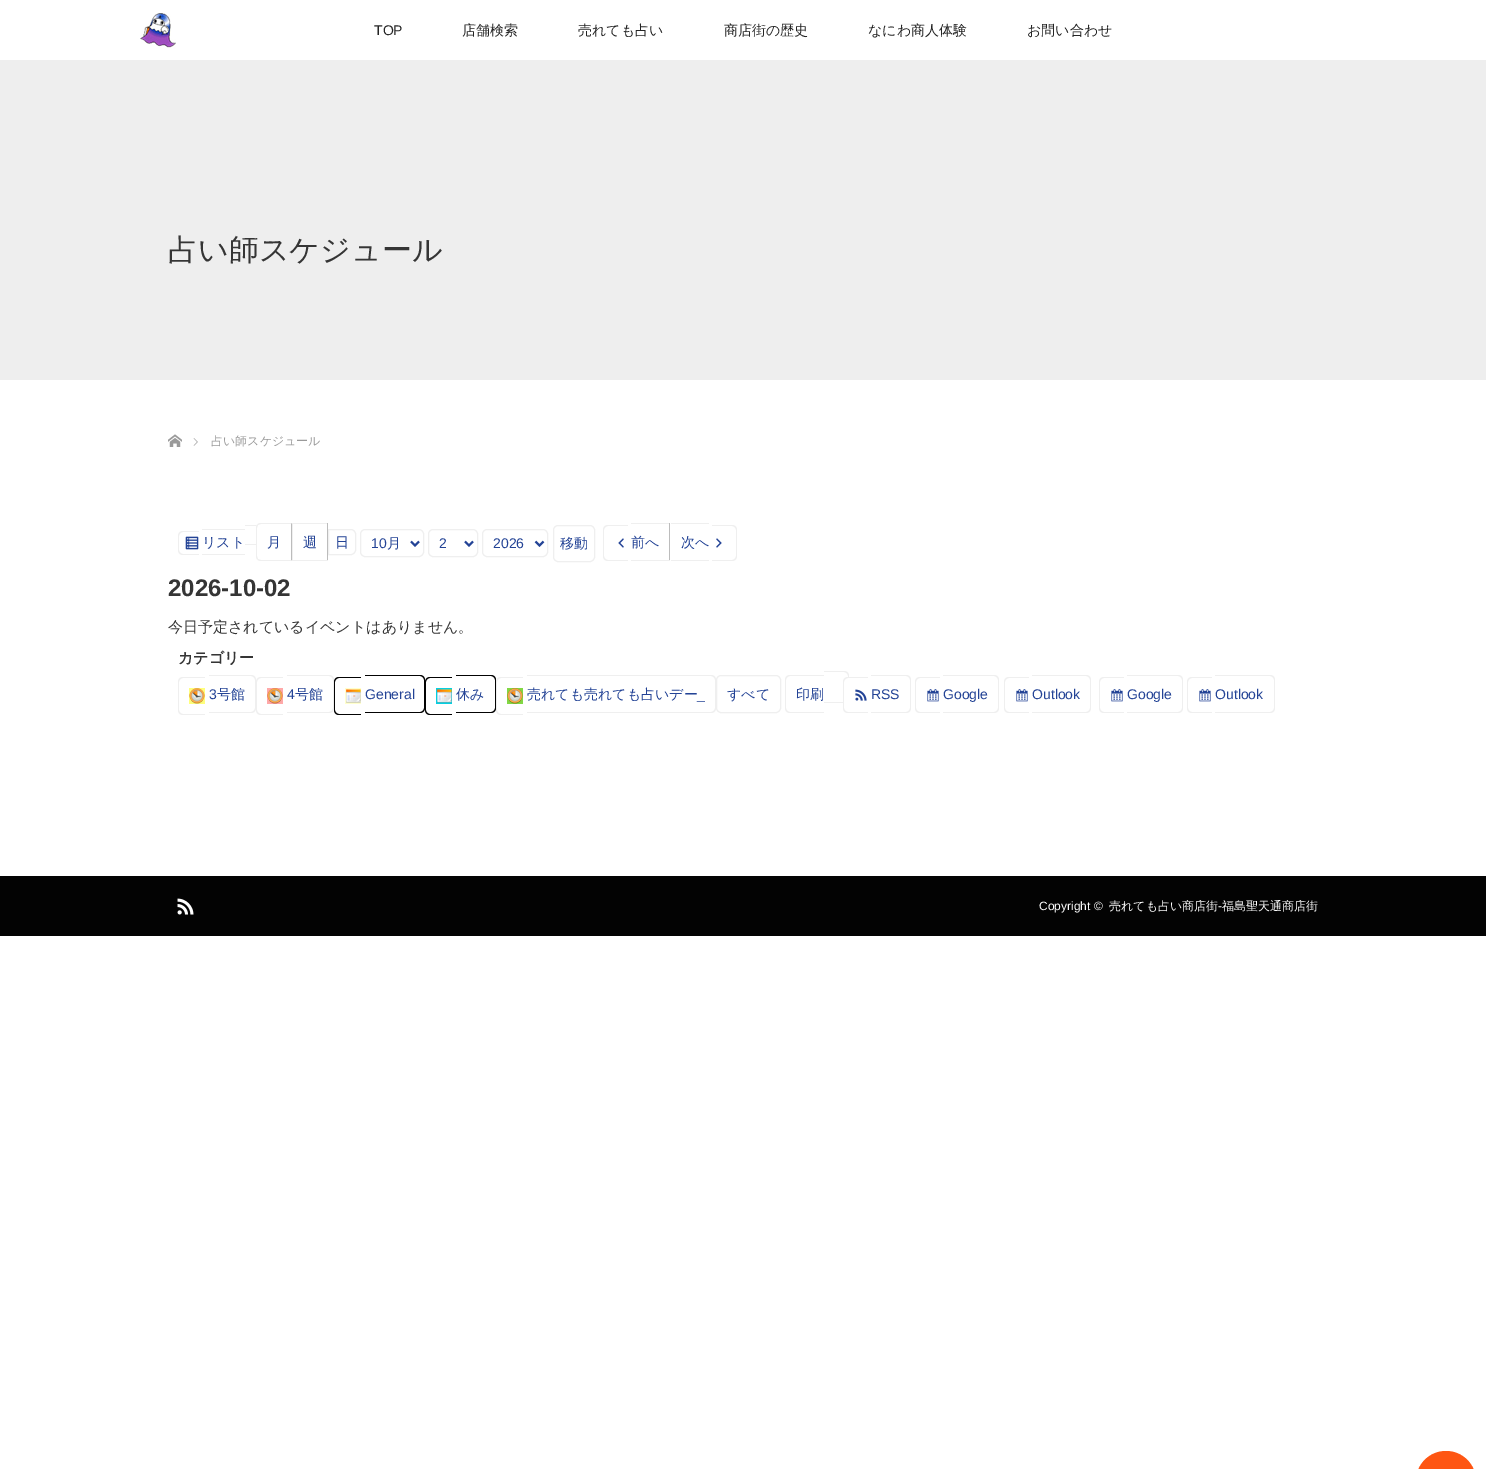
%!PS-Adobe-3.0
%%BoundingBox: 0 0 1486 1469
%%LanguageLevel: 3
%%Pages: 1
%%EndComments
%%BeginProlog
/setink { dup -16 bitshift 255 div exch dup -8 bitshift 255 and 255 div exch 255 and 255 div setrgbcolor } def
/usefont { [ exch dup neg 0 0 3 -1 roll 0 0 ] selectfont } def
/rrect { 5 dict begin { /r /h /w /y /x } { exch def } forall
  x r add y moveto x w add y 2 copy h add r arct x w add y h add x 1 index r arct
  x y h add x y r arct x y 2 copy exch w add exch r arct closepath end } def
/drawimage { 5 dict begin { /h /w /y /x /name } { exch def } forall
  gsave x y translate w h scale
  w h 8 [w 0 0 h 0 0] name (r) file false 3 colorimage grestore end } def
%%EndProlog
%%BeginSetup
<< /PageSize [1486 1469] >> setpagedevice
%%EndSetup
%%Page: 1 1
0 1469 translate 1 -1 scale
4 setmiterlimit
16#FFFFFF setink
0 0 1486 1469 rectfill
(img1.raw) 140 13 36 36 drawimage
/LiberationSans-Regular 14 usefont
16#242424 setink
374 35 moveto (TOP) show
/WenQuanYiZenHei-Medium 14 usefont
[
    [(店舗検索) 462 35]
    [(売れても占い) 578 35]
    [(商店街の歴史) 724 35]
    [(なにわ商人体験) 868 35]
    [(お問い合わせ) 1027 35]
] { aload pop moveto show } forall
16#EEEEEE setink
0 60 1486 320 rectfill
/WenQuanYiZenHei-Medium 30 usefont
16#353535 setink
168 260 moveto (占い師スケジュール) show
(img2.raw) 168 434 14 13 drawimage
(img3.raw) 193 438 5 8 drawimage
/WenQuanYiZenHei-Medium 12 usefont
16#9A9A9A setink
211 445 moveto (占い師スケジュール) show
16#EFEFEF setink
183 531 moveto 199 531 lineto 199 555 lineto 183 555 lineto 180 555 178 553 178 550 curveto 178 536 lineto 178 533 180 531 183 531 curveto closepath 183 532 moveto 199 532 lineto 199 554 lineto 183 554 lineto 181 554 179 552 179 550 curveto 179 536 lineto 179 534 181 532 183 532 curveto closepath eofill
(img4.raw) 185 536 14 14 drawimage
/WenQuanYiZenHei-Medium 14 usefont
16#234396 setink
202 547 moveto (リスト) show
16#EFEFEF setink
202 529 43 1 rectfill
202 554 43 1 rectfill
245 525 moveto 258.5 525 lineto 266.5 525 266 528 266 535 curveto 266 542 266.5 545 258.5 545 curveto 245 545 lineto closepath 245 526 moveto 258.5 526 lineto 266 526 265 528.5 265 535 curveto 265 541.5 266 544 258.5 544 curveto 245 544 lineto closepath eofill
16#FFFFFF setink
261 523 moveto 292 523 lineto 292 561 lineto 261 561 lineto 258 561 256 559 256 556 curveto 256 528 lineto 256 525 258 523 261 523 curveto closepath fill
16#234396 setink
267 547 moveto (月) show
16#EFEFEF setink
261 523 moveto 259.5 523 258 523.5 257.5 524.5 curveto 258 525 lineto 259 524.5 260 524 261 524 curveto 291 524 lineto 292 523 lineto closepath fill
16#BCBCBC setink
292 523 moveto 291 524 lineto 291 560 lineto 292 561 lineto closepath fill
16#EFEFEF setink
292 561 moveto 291 560 lineto 261 560 lineto 260 560 259 559.5 258 559 curveto 257.5 559.5 lineto 258 560.5 259.5 561 261 561 curveto closepath fill
256 528 moveto 256 556 lineto 256 557.5 256.5 559 257.5 559.5 curveto 258 559 lineto 257.5 558 257 557 257 556 curveto 257 528 lineto 257 527 257.5 526 258 525 curveto 257.5 524.5 lineto 256.5 525 256 526.5 256 528 curveto closepath fill
16#234396 setink
303 547 moveto (週) show
[
    [292 523 36 1 16#EFEFEF]
    [327 523 1 38 16#BCBCBC]
    [292 560 36 1 16#EFEFEF]
    [292 523 1 38 16#EFEFEF]
] { aload pop setink rectfill } forall
328.5 529.5 moveto 351 529.5 lineto 353.5 529.5 355.5 531.5 355.5 534 curveto 355.5 550 lineto 355.5 552.5 353.5 554.5 351 554.5 curveto 328.5 554.5 lineto closepath stroke
16#234396 setink
335 547 moveto (日) show
16#EFEFEF setink
360.5 529.5 63 27 4.5 rrect stroke
16#234396 setink
2 setlinewidth
411 541.5 moveto 415 545.5 lineto 419 541.5 lineto stroke
/LiberationSans-Regular 14 usefont
371 548 moveto (10) show
/WenQuanYiZenHei-Medium 14 usefont
387 548 moveto (月) show
16#EFEFEF setink
1 setlinewidth
428.5 529.5 49 27 4.5 rrect stroke
16#234396 setink
2 setlinewidth
465 541.5 moveto 469 545.5 lineto 473 541.5 lineto stroke
/LiberationSans-Regular 14 usefont
439 548 moveto (2) show
16#EFEFEF setink
1 setlinewidth
482.5 529.5 65 27 4.5 rrect stroke
16#234396 setink
2 setlinewidth
535.5 541.5 moveto 539.5 545.5 lineto 543.5 541.5 lineto stroke
493 548 moveto (2026) show
16#EFEFEF setink
1 setlinewidth
553.5 525.5 41 36 4.5 rrect stroke
/WenQuanYiZenHei-Medium 14 usefont
16#234396 setink
560 548 moveto (移動) show
16#EFEFEF setink
608 525 moveto 628 525 lineto 628 561 lineto 608 561 lineto 605 561 603 559 603 556 curveto 603 530 lineto 603 527 605 525 608 525 curveto closepath 608 526 moveto 628 526 lineto 628 560 lineto 608 560 lineto 606 560 604 558 604 556 curveto 604 530 lineto 604 528 606 526 608 526 curveto closepath eofill
(img5.raw) 618 538 6 10 drawimage
16#234396 setink
631 547 moveto (前へ) show
[
    [631 523 78 1 16#EFEFEF]
    [669 523 1 38 16#BCBCBC]
    [631 560 78 1 16#EFEFEF]
] { aload pop setink rectfill } forall
16#234396 setink
681 547 moveto (次へ) show
16#FFFFFF setink
670 523 1 38 rectfill
16#EFEFEF setink
712 525 moveto 732 525 lineto 735 525 737 527 737 530 curveto 737 556 lineto 737 559 735 561 732 561 curveto 712 561 lineto closepath 712 526 moveto 732 526 lineto 734 526 736 528 736 530 curveto 736 556 lineto 736 558 734 560 732 560 curveto 712 560 lineto closepath eofill
(img6.raw) 716 538 6 10 drawimage
/LiberationSans-Bold 24 usefont
16#353535 setink
168 596 moveto (2026-10-02) show
/WenQuanYiZenHei-Medium 15 usefont
168 632 moveto (今日予定されているイベントはありません。) show
/WenQuanYiZenHei-Bold 15 usefont
178 663 moveto (カテゴリー) show
16#EFEFEF setink
183 677 moveto 205 677 lineto 205 715 lineto 183 715 lineto 180 715 178 713 178 710 curveto 178 682 lineto 178 679 180 677 183 677 curveto closepath 183 678 moveto 205 678 lineto 205 714 lineto 183 714 lineto 181 714 179 712 179 710 curveto 179 682 lineto 179 680 181 678 183 678 curveto closepath eofill
16#FFFF7D setink
189 688 16 16 rectfill
(img7.raw) 189 688 16 16 drawimage
16#EFEFEF setink
209 675 moveto 251 675 lineto 254 675 256 677 256 680 curveto 256 708 lineto 256 711 254 713 251 713 curveto 209 713 lineto closepath 209 676 moveto 251 676 lineto 253 676 255 678 255 680 curveto 255 708 lineto 255 710 253 712 251 712 curveto 209 712 lineto closepath eofill
/LiberationSans-Regular 14 usefont
16#234396 setink
209 699 moveto (3) show
/WenQuanYiZenHei-Medium 14 usefont
217 699 moveto (号館) show
16#EFEFEF setink
261 677 moveto 283 677 lineto 283 715 lineto 261 715 lineto 258 715 256 713 256 710 curveto 256 682 lineto 256 679 258 677 261 677 curveto closepath 261 678 moveto 283 678 lineto 283 714 lineto 261 714 lineto 259 714 257 712 257 710 curveto 257 682 lineto 257 680 259 678 261 678 curveto closepath eofill
16#FFA9A9 setink
267 688 16 16 rectfill
(img8.raw) 267 688 16 16 drawimage
16#EFEFEF setink
287 675 moveto 329 675 lineto 332 675 334 677 334 680 curveto 334 708 lineto 334 711 332 713 329 713 curveto 287 713 lineto closepath 287 676 moveto 329 676 lineto 331 676 333 678 333 680 curveto 333 708 lineto 333 710 331 712 329 712 curveto 287 712 lineto closepath eofill
/LiberationSans-Regular 14 usefont
16#234396 setink
287 699 moveto (4) show
/WenQuanYiZenHei-Medium 14 usefont
295 699 moveto (号館) show
16#030303 setink
339 677 moveto 361 677 lineto 361 715 lineto 339 715 lineto 336 715 334 713 334 710 curveto 334 682 lineto 334 679 336 677 339 677 curveto closepath 339 678 moveto 361 678 lineto 361 714 lineto 339 714 lineto 337 714 335 712 335 710 curveto 335 682 lineto 335 680 337 678 339 678 curveto closepath eofill
16#FFFFCD setink
345 688 16 16 rectfill
(img9.raw) 346 689 15 14 drawimage
16#030303 setink
365 675 moveto 420 675 lineto 423 675 425 677 425 680 curveto 425 708 lineto 425 711 423 713 420 713 curveto 365 713 lineto closepath 365 676 moveto 420 676 lineto 422 676 424 678 424 680 curveto 424 708 lineto 424 710 422 712 420 712 curveto 365 712 lineto closepath eofill
/LiberationSans-Regular 14 usefont
16#234396 setink
365 699 moveto (General) show
16#030303 setink
430 677 moveto 452 677 lineto 452 715 lineto 430 715 lineto 427 715 425 713 425 710 curveto 425 682 lineto 425 679 427 677 430 677 curveto closepath 430 678 moveto 452 678 lineto 452 714 lineto 430 714 lineto 428 714 426 712 426 710 curveto 426 682 lineto 426 680 428 678 430 678 curveto closepath eofill
16#03D0E2 setink
436 688 16 16 rectfill
(img10.raw) 437 689 15 14 drawimage
16#030303 setink
456 675 moveto 491 675 lineto 494 675 496 677 496 680 curveto 496 708 lineto 496 711 494 713 491 713 curveto 456 713 lineto closepath 456 676 moveto 491 676 lineto 493 676 495 678 495 680 curveto 495 708 lineto 495 710 493 712 491 712 curveto 456 712 lineto closepath eofill
/WenQuanYiZenHei-Medium 14 usefont
16#234396 setink
456 699 moveto (休み) show
16#EFEFEF setink
501 677 moveto 523 677 lineto 523 715 lineto 501 715 lineto 498 715 496 713 496 710 curveto 496 682 lineto 496 679 498 677 501 677 curveto closepath 501 678 moveto 523 678 lineto 523 714 lineto 501 714 lineto 499 714 497 712 497 710 curveto 497 682 lineto 497 680 499 678 501 678 curveto closepath eofill
16#82D744 setink
507 688 16 16 rectfill
(img11.raw) 507 688 16 16 drawimage
16#EFEFEF setink
527 675 moveto 711 675 lineto 714 675 716 677 716 680 curveto 716 708 lineto 716 711 714 713 711 713 curveto 527 713 lineto closepath 527 676 moveto 711 676 lineto 713 676 715 678 715 680 curveto 715 708 lineto 715 710 713 712 711 712 curveto 527 712 lineto closepath eofill
16#234396 setink
527 699 moveto (売れても売れても占いデー) show
/LiberationSans-Regular 14 usefont
697 699 moveto (_) show
16#EFEFEF setink
716.5 675.5 64 37 4.5 rrect stroke
/WenQuanYiZenHei-Medium 14 usefont
16#234396 setink
727 699 moveto (すべて) show
16#EFEFEF setink
790 675 moveto 824 675 lineto 824 713 lineto 790 713 lineto 787 713 785 711 785 708 curveto 785 680 lineto 785 677 787 675 790 675 curveto closepath 790 676 moveto 824 676 lineto 824 712 lineto 790 712 lineto 788 712 786 710 786 708 curveto 786 680 lineto 786 678 788 676 790 676 curveto closepath eofill
16#234396 setink
796 699 moveto (印刷) show
16#EFEFEF setink
824 671 moveto 844 671 lineto 847 671 849 673 849 676 curveto 849 698 lineto 849 701 847 703 844 703 curveto 824 703 lineto closepath 824 672 moveto 844 672 lineto 846 672 848 674 848 676 curveto 848 698 lineto 848 700 846 702 844 702 curveto 824 702 lineto closepath eofill
16#FFFFFF setink
848 677 moveto 868 677 lineto 868 713 lineto 848 713 lineto 845 713 843 711 843 708 curveto 843 682 lineto 843 679 845 677 848 677 curveto closepath fill
16#EFEFEF setink
848 677 moveto 868 677 lineto 868 713 lineto 848 713 lineto 845 713 843 711 843 708 curveto 843 682 lineto 843 679 845 677 848 677 curveto closepath 848 678 moveto 868 678 lineto 868 712 lineto 848 712 lineto 846 712 844 710 844 708 curveto 844 682 lineto 844 680 846 678 848 678 curveto closepath eofill
(img12.raw) 855 689 12 12 drawimage
871 675 moveto 906 675 lineto 909 675 911 677 911 680 curveto 911 708 lineto 911 711 909 713 906 713 curveto 871 713 lineto closepath 871 676 moveto 906 676 lineto 908 676 910 678 910 680 curveto 910 708 lineto 910 710 908 712 906 712 curveto 871 712 lineto closepath eofill
/LiberationSans-Regular 14 usefont
16#234396 setink
871 699 moveto (RSS) show
16#EFEFEF setink
920 677 moveto 940 677 lineto 940 713 lineto 920 713 lineto 917 713 915 711 915 708 curveto 915 682 lineto 915 679 917 677 920 677 curveto closepath 920 678 moveto 940 678 lineto 940 712 lineto 920 712 lineto 918 712 916 710 916 708 curveto 916 682 lineto 916 680 918 678 920 678 curveto closepath eofill
(img13.raw) 927 689 12 13 drawimage
943 675 moveto 994 675 lineto 997 675 999 677 999 680 curveto 999 708 lineto 999 711 997 713 994 713 curveto 943 713 lineto closepath 943 676 moveto 994 676 lineto 996 676 998 678 998 680 curveto 998 708 lineto 998 710 996 712 994 712 curveto 943 712 lineto closepath eofill
16#234396 setink
943 699 moveto (Google) show
16#EFEFEF setink
1009 677 moveto 1029 677 lineto 1029 713 lineto 1009 713 lineto 1006 713 1004 711 1004 708 curveto 1004 682 lineto 1004 679 1006 677 1009 677 curveto closepath 1009 678 moveto 1029 678 lineto 1029 712 lineto 1009 712 lineto 1007 712 1005 710 1005 708 curveto 1005 682 lineto 1005 680 1007 678 1009 678 curveto closepath eofill
(img13.raw) 1016 689 12 13 drawimage
1032 675 moveto 1086 675 lineto 1089 675 1091 677 1091 680 curveto 1091 708 lineto 1091 711 1089 713 1086 713 curveto 1032 713 lineto closepath 1032 676 moveto 1086 676 lineto 1088 676 1090 678 1090 680 curveto 1090 708 lineto 1090 710 1088 712 1086 712 curveto 1032 712 lineto closepath eofill
16#234396 setink
1032 699 moveto (Outlook) show
16#EFEFEF setink
1104 677 moveto 1124 677 lineto 1124 713 lineto 1104 713 lineto 1101 713 1099 711 1099 708 curveto 1099 682 lineto 1099 679 1101 677 1104 677 curveto closepath 1104 678 moveto 1124 678 lineto 1124 712 lineto 1104 712 lineto 1102 712 1100 710 1100 708 curveto 1100 682 lineto 1100 680 1102 678 1104 678 curveto closepath eofill
(img13.raw) 1111 689 12 13 drawimage
1127 675 moveto 1178 675 lineto 1181 675 1183 677 1183 680 curveto 1183 708 lineto 1183 711 1181 713 1178 713 curveto 1127 713 lineto closepath 1127 676 moveto 1178 676 lineto 1180 676 1182 678 1182 680 curveto 1182 708 lineto 1182 710 1180 712 1178 712 curveto 1127 712 lineto closepath eofill
16#234396 setink
1127 699 moveto (Google) show
16#EFEFEF setink
1192 677 moveto 1212 677 lineto 1212 713 lineto 1192 713 lineto 1189 713 1187 711 1187 708 curveto 1187 682 lineto 1187 679 1189 677 1192 677 curveto closepath 1192 678 moveto 1212 678 lineto 1212 712 lineto 1192 712 lineto 1190 712 1188 710 1188 708 curveto 1188 682 lineto 1188 680 1190 678 1192 678 curveto closepath eofill
(img13.raw) 1199 689 12 13 drawimage
1215 675 moveto 1270 675 lineto 1273 675 1275 677 1275 680 curveto 1275 708 lineto 1275 711 1273 713 1270 713 curveto 1215 713 lineto closepath 1215 676 moveto 1270 676 lineto 1272 676 1274 678 1274 680 curveto 1274 708 lineto 1274 710 1272 712 1270 712 curveto 1215 712 lineto closepath eofill
16#234396 setink
1215 699 moveto (Outlook) show
16#030303 setink
0 876 1486 60 rectfill
(img14.raw) 177 898 17 17 drawimage
/LiberationSans-Regular 12 usefont
16#FFFFFF setink
1039 910 moveto (Copyright ©) show
/WenQuanYiZenHei-Medium 12 usefont
1109 910 moveto (売れても占い商店街) show
/LiberationSans-Regular 12 usefont
1218 910 moveto (-) show
/WenQuanYiZenHei-Medium 12 usefont
1222 910 moveto (福島聖天通商店街) show
16#FE5613 setink
1416 1451 60 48 30 rrect fill
showpage
%%EOF
